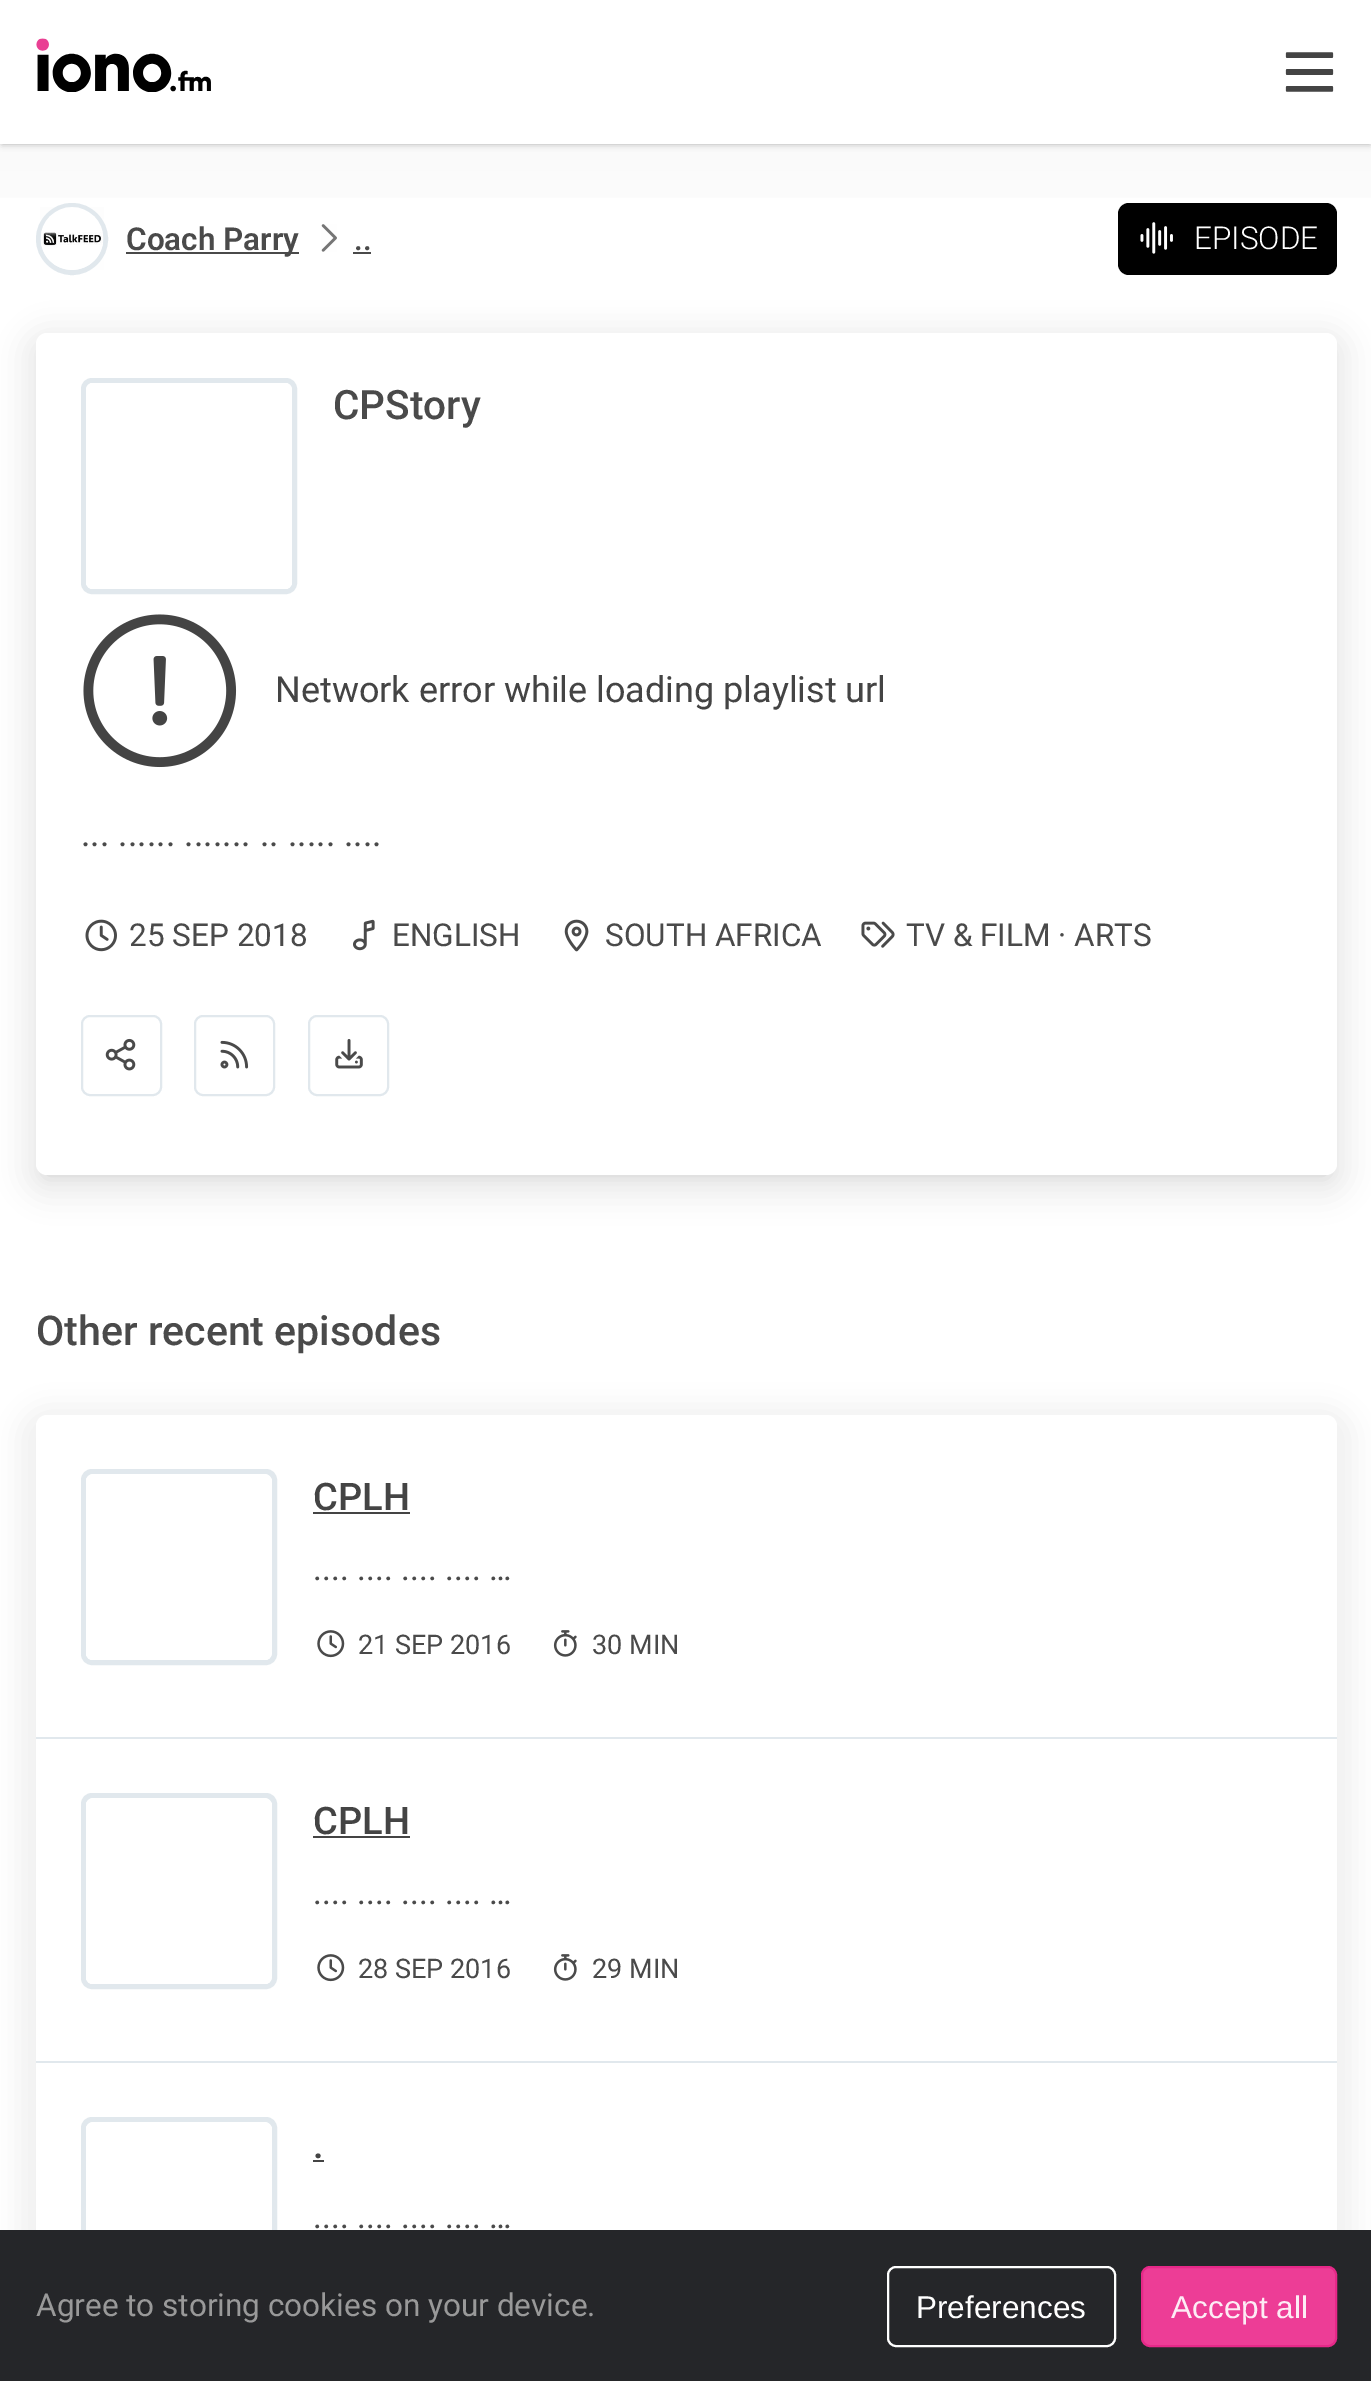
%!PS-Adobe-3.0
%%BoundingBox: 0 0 1371 2381
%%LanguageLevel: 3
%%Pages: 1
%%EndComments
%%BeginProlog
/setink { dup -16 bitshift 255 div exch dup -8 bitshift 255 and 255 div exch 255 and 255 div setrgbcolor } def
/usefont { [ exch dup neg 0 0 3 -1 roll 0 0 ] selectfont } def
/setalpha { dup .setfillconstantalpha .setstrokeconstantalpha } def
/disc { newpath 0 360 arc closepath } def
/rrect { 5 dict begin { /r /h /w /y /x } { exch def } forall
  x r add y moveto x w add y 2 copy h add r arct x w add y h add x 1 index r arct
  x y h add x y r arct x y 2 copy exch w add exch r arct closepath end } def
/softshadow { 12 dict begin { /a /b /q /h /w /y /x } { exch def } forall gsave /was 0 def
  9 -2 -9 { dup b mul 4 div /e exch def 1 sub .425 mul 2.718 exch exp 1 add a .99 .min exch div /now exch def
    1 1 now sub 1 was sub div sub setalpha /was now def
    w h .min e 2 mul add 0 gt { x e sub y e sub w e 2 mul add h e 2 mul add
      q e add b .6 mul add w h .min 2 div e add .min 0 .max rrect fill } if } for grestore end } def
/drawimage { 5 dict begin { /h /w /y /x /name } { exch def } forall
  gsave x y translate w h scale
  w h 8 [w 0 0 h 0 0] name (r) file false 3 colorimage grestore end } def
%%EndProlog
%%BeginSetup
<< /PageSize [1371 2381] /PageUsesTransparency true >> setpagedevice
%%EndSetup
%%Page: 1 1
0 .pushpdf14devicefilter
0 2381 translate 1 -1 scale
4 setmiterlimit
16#FFFFFF setink
0 0 1371 2381 rectfill
gsave 0 144 moveto 1371 144 lineto 1371 198 lineto 0 198 lineto closepath clip newpath
<< /ShadingType 2 /ColorSpace /DeviceRGB /Coords [686 0 686 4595] /Extend [true true] /Function << /FunctionType 3 /Domain [0 1] /Functions [<< /FunctionType 2 /Domain [0 1] /C0 [0.953 0.953 0.953] /C1 [0.996 0.996 0.996] /N 1 >> << /FunctionType 2 /Domain [0 1] /C0 [0.996 0.996 0.996] /C1 [0.996 0.996 0.996] /N 1 >>] /Bounds [0.05] /Encode [0 1 0 1] >> >> shfill grestore
16#000000 setink
2 5 1368 139 0 3.5 0.3 softshadow
16#FFFFFF setink
0 0 1371 144 rectfill
(img1.raw) 36 38 175 54 drawimage
(img2.raw) 1285 52 49 40 drawimage
16#E1E8ED setink
5 setlinewidth
72 239 33.5 disc stroke
(img3.raw) 40 207 64 63 drawimage
16#4A4A4A setink
126 252 173 2 rectfill
/Roboto-SemiBold 31.5 usefont
126 250 moveto (Coach Parry) show
(img4.raw) 321 224 16 28 drawimage
/Roboto-Medium 31.5 usefont
354 250 moveto (..) show
353 252 18 2 rectfill
16#000000 setink
1118 203 219 72 11 rrect fill
(img5.raw) 1140 222 33 32 drawimage
/Roboto-Light 31.5 usefont
16#FFFFFF setink
1194 249 moveto (EPISODE) show
16#000000 setink
45 351 1283 824 2 9 0.12 softshadow
18 324 1337 878 29 13.5 0.05 softshadow
16#FFFFFF setink
36 333 1301 842 11 rrect fill
16#E1E8ED setink
83.5 380.5 211 211 8.5 rrect stroke
(img6.raw) 86 383 206 206 drawimage
/Roboto-Medium 40.5 usefont
16#4A4A4A setink
333 419 moveto (CPStory) show
(img7.raw) 83 614 154 154 drawimage
/Roboto-Regular 36 usefont
16#444444 setink
275 702 moveto (Network error while loading playlist url) show
16#4A4A4A setink
81 846 moveto (... ...... ....... .. ..... ....) show
(img8.raw) 85 919 32 33 drawimage
/Roboto-Regular 31.5 usefont
129 946 moveto (25 SEP 2018) show
(img9.raw) 353 919 22 32 drawimage
392 946 moveto (ENGLISH) show
(img10.raw) 564 919 25 33 drawimage
605 946 moveto (SOUTH AFRICA) show
(img11.raw) 861 921 34 27 drawimage
906 946 moveto (TV & FILM · ARTS) show
16#E1E8ED setink
2 setlinewidth
82 1016 79 79 8 rrect stroke
(img12.raw) 105 1038 31 33 drawimage
195 1016 79 79 8 rrect stroke
(img13.raw) 220 1040 29 29 drawimage
309 1016 79 79 8 rrect stroke
(img14.raw) 335 1039 28 30 drawimage
/Roboto-Medium 41.1 usefont
16#4A4A4A setink
36 1345 moveto (Other recent episodes) show
16#000000 setink
18 1406 1337 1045 29 13.5 0.05 softshadow
16#FFFFFF setink
36 1415 1301 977 11 rrect fill
16#E1E8ED setink
83.5 1471.5 191 191 8.5 rrect gsave fill grestore
5 setlinewidth
stroke
(img15.raw) 86 1474 186 186 drawimage
/Roboto-Medium 38 usefont
16#444444 setink
313 1510 moveto (CPLH) show
313 1512 97 2 rectfill
/Roboto-Regular 33.75 usefont
16#4A4A4A setink
313 1580 moveto (.... .... .... .... …) show
(img16.raw) 317 1630 28 28 drawimage
/Roboto-Regular 27 usefont
358 1654 moveto (21 SEP 2016) show
(img17.raw) 553 1630 24 27 drawimage
592 1654 moveto (30 MIN) show
16#E1E8ED setink
36 1737 1301 2 rectfill
83.5 1795.5 191 191 8.5 rrect gsave fill grestore
stroke
(img15.raw) 86 1798 186 186 drawimage
/Roboto-Medium 38 usefont
16#444444 setink
313 1834 moveto (CPLH) show
313 1836 97 2 rectfill
/Roboto-Regular 33.75 usefont
16#4A4A4A setink
313 1904 moveto (.... .... .... .... …) show
(img16.raw) 317 1954 28 28 drawimage
/Roboto-Regular 27 usefont
358 1978 moveto (28 SEP 2016) show
(img17.raw) 553 1954 24 27 drawimage
592 1978 moveto (29 MIN) show
16#E1E8ED setink
36 2061 1301 2 rectfill
83.5 2119.5 191 191 8.5 rrect gsave fill grestore
stroke
(img18.raw) 86 2122 186 108 drawimage
/Roboto-Medium 38 usefont
16#444444 setink
313 2158 moveto (.) show
313 2160 11 2 rectfill
/Roboto-Regular 33.75 usefont
16#4A4A4A setink
313 2228 moveto (.... .... .... .... …) show
16#252629 setink
0 2230 1371 151 rectfill
/Roboto-Regular 31.5 usefont
16#999999 setink
36 2316 moveto (Agree to storing cookies on your device.) show
16#FFFFFF setink
2 setlinewidth
888 2267 227 79 8 rrect stroke
/LiberationSans-Regular 31.5 usefont
916 2318 moveto (Preferences) show
16#ED3D96 setink
1142 2267 194 79 8 rrect gsave fill grestore
16#E62888 setink
stroke
16#FDECF5 setink
1171 2318 moveto (Accept all) show
.poppdf14devicefilter showpage
%%EOF
